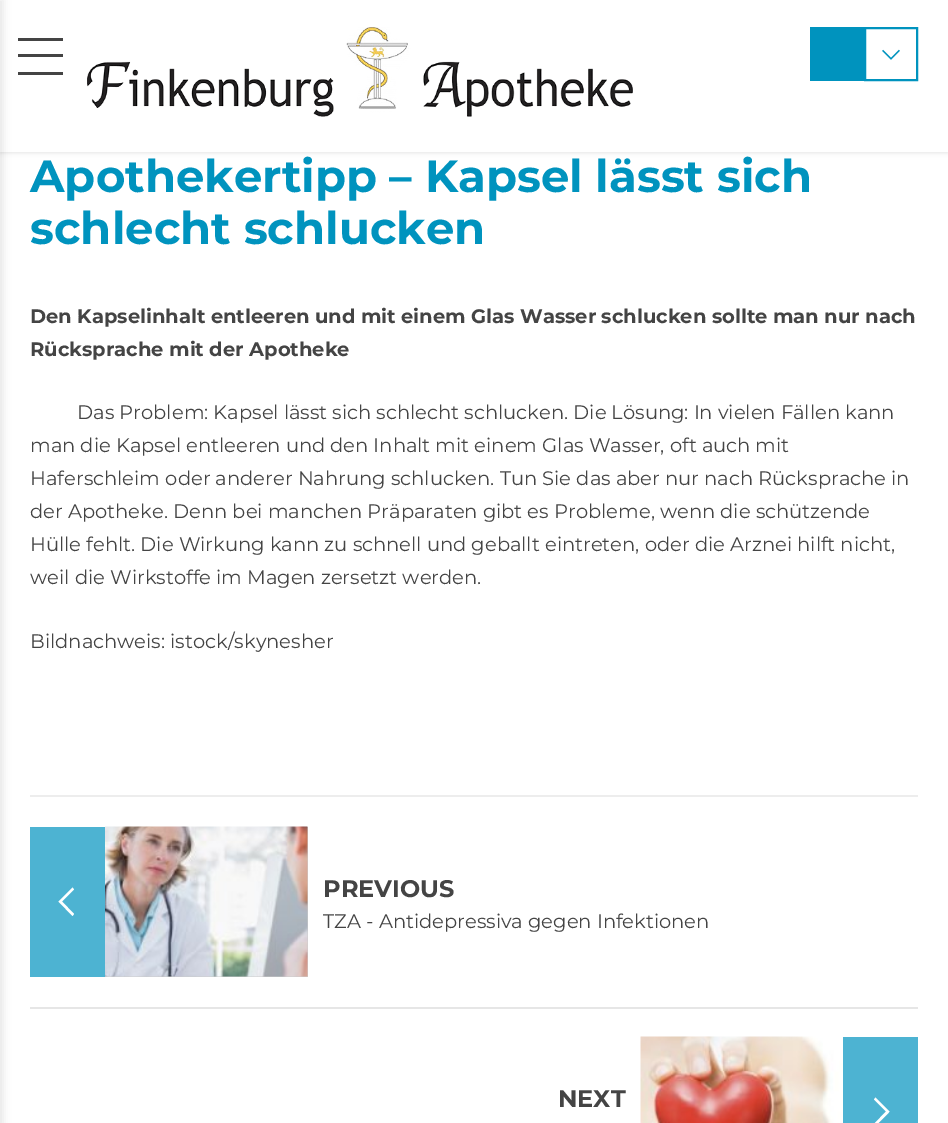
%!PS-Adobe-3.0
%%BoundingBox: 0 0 948 1123
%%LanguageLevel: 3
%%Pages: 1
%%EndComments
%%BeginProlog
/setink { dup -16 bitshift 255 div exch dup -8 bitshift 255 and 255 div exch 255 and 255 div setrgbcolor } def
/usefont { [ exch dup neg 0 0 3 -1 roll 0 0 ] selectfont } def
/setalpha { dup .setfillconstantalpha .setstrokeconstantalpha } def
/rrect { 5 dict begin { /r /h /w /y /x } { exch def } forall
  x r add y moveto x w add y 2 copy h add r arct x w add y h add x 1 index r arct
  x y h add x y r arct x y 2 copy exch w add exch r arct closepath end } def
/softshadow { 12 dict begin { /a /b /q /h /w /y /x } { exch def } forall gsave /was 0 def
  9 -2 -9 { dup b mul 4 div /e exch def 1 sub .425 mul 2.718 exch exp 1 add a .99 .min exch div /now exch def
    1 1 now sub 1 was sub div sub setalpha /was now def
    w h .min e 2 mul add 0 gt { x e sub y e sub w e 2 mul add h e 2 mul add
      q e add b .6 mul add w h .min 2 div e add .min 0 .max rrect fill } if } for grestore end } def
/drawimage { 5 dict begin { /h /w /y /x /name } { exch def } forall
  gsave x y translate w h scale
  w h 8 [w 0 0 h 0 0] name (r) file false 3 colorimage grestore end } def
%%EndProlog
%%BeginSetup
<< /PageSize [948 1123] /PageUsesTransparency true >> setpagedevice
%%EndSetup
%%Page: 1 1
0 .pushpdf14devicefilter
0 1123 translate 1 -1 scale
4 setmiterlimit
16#FFFFFF setink
0 0 948 1123 rectfill
16#000000 setink
-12 0 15 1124 0 4 0.1 softshadow
gsave
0 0 moveto 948 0 lineto 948 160 lineto 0 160 lineto closepath 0 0 moveto 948 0 lineto 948 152 lineto 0 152 lineto closepath eoclip newpath
0 2 948 151 0 2 0.1 softshadow
grestore
[
    [18 38 45 3 16#444444]
    [18 54 45 3 16#444444]
    [18 72 45 3 16#444444]
] { aload pop setink rectfill } forall
(img1.raw) 87 27 546 90 drawimage
16#0093BE setink
810 27 54 54 rectfill
2 setlinewidth
865 28 52 52 rectstroke
(img2.raw) 882 49 18 11 drawimage
/Montserrat-Thin 45 usefont
30 192 moveto (Apothekertipp – Kapsel lässt sich) show
30 244 moveto (schlecht schlucken) show
/Montserrat-Thin 19.5 usefont
16#444444 setink
30 323 moveto (Den Kapselinhalt entleeren und mit einem Glas Wasser schlucken sollte man nur nach) show
30 356 moveto (Rücksprache mit der Apotheke) show
/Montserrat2-Thin 19.5 usefont
[
    [(Das Problem: Kapsel lässt sich schlecht schlucken. Die Lösung: In vielen Fällen kann) 77 419]
    [(man die Kapsel entleeren und den Inhalt mit einem Glas Wasser, oft auch mit) 30 452]
    [(Haferschleim oder anderer Nahrung schlucken. Tun Sie das aber nur nach Rücksprache in) 30 485]
    [(der Apotheke. Denn bei manchen Präparaten gibt es Probleme, wenn die schützende) 30 518]
    [(Hülle fehlt. Die Wirkung kann zu schnell und geballt eintreten, oder die Arznei hilft nicht,) 30 551]
    [(weil die Wirkstoffe im Magen zersetzt werden.) 30 584]
    [(Bildnachweis: istock/skynesher) 30 648]
] { aload pop moveto show } forall
16#EDEDED setink
30 795 888 2 rectfill
16#4DB3D2 setink
30 827 75 150 rectfill
16#FFFFFF setink
60 900 moveto 58.5 901.5 lineto 72.5 916 lineto 74 914 lineto 62 901.5 lineto 74 889.5 lineto 72.5 887.5 lineto closepath fill
16#CCCCCC setink
105 827 203 150 rectfill
(img3.raw) 105 826 203 151 drawimage
/Montserrat-Thin 24 usefont
16#444444 setink
323 897 moveto (PREVIOUS) show
/Montserrat2-Thin 19.5 usefont
323 928 moveto (TZA - Antidepressiva gegen Infektionen) show
16#E6E6E6 setink
30 1007 888 2 rectfill
/Montserrat-Thin 24 usefont
16#444444 setink
558 1107 moveto (NEXT) show
(img4.raw) 640 1036 203 87 drawimage
16#4DB3D2 setink
843 1037 75 86 rectfill
16#FFFFFF setink
888 1113.5 moveto 889.5 1111.5 lineto 875.5 1097.5 lineto 874 1099.5 lineto 886 1111.5 lineto 874 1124 lineto 875.5 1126 lineto closepath fill
.poppdf14devicefilter showpage
%%EOF
